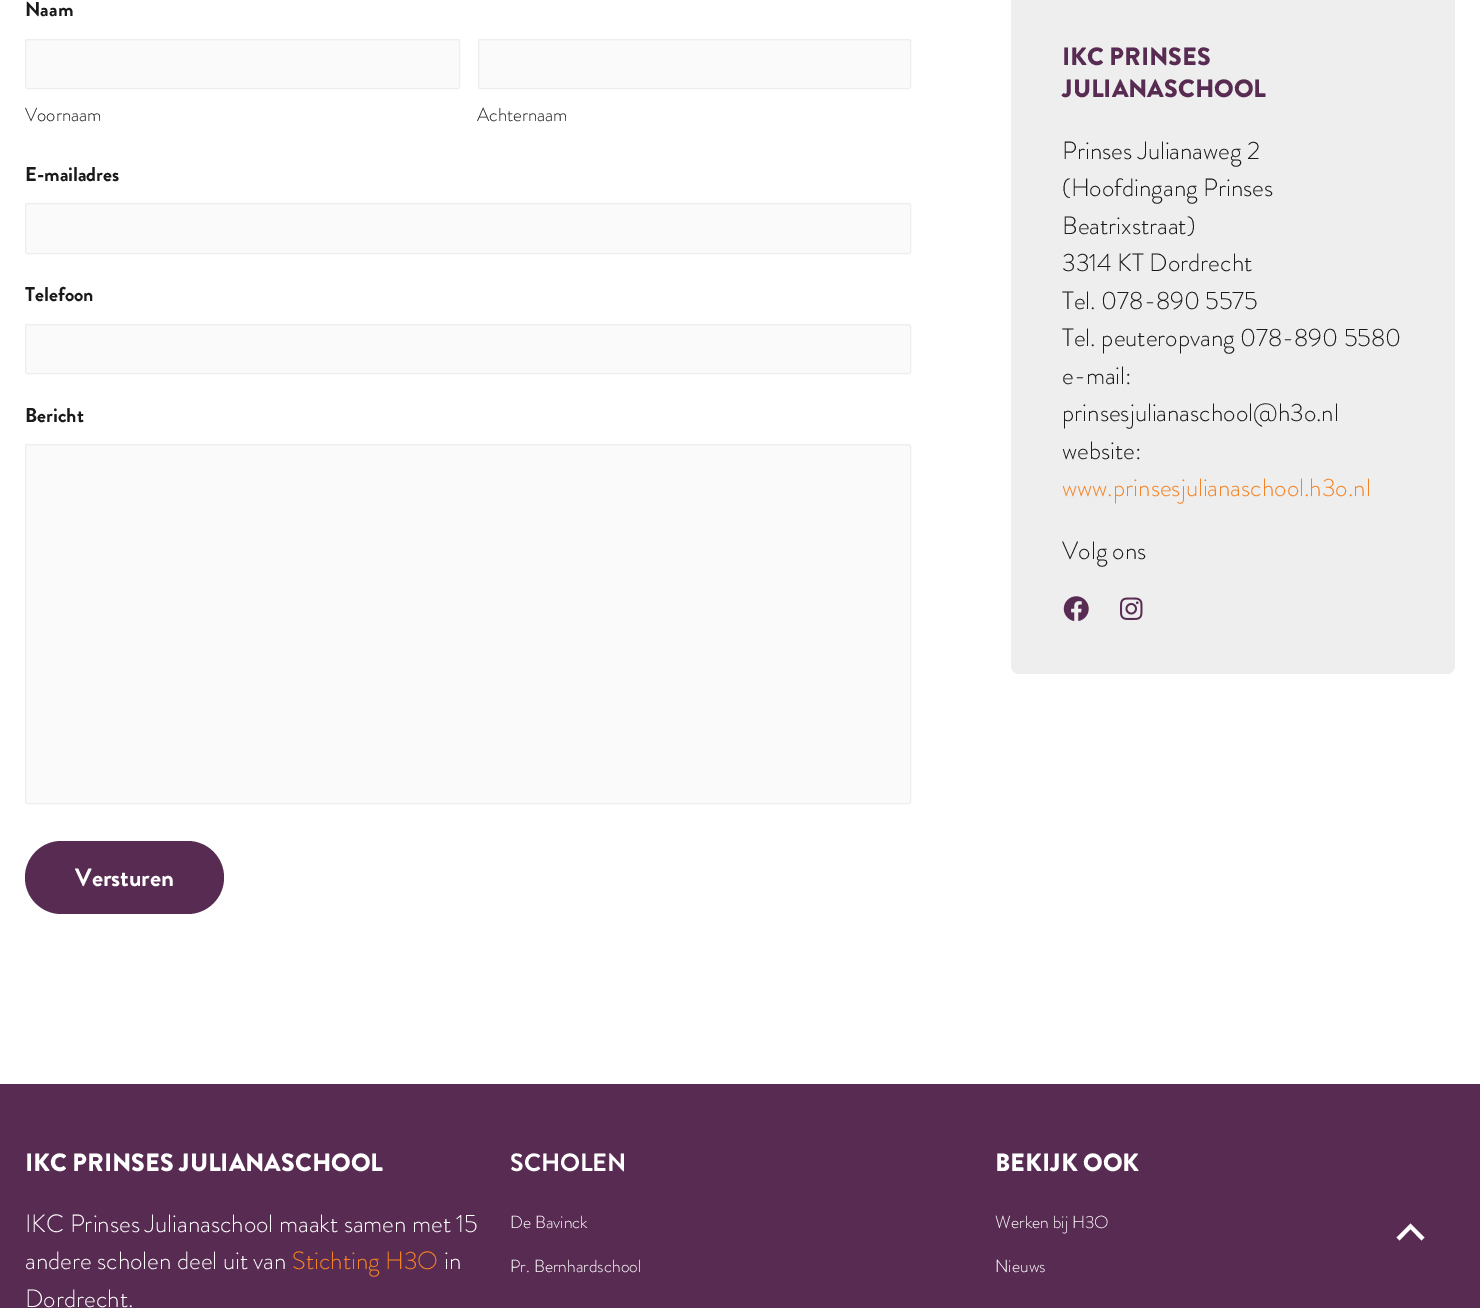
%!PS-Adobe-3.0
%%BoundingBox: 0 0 1480 1308
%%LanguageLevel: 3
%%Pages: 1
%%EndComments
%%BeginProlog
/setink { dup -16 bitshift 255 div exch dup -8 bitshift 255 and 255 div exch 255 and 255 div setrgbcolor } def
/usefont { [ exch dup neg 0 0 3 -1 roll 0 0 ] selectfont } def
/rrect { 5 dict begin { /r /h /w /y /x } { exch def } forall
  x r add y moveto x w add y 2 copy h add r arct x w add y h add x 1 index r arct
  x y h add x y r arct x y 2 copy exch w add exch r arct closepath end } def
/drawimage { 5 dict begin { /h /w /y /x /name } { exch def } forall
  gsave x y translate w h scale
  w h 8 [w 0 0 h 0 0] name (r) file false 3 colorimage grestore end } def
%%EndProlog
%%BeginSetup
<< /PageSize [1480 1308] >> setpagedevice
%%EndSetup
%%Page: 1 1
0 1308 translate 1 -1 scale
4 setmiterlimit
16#FFFFFF setink
0 0 1480 1308 rectfill
/BrandonGrotesque-Bold 20 usefont
16#1B1A1A setink
25 16 moveto (Naam) show
16#FAFAFA setink
25.5 39.5 434 49 2 rrect gsave fill grestore
16#EEEEEE setink
stroke
/BrandonGrotesque-Light 18.75 usefont
16#1B1A1A setink
25 121 moveto (Voornaam) show
16#FAFAFA setink
478.5 39.5 432 49 2 rrect gsave fill grestore
16#EEEEEE setink
stroke
16#1B1A1A setink
477 121 moveto (Achternaam) show
/BrandonGrotesque-Bold 20 usefont
25 181 moveto (E-mailadres) show
16#FAFAFA setink
25.5 203.5 885 50 2 rrect gsave fill grestore
16#EEEEEE setink
stroke
16#1B1A1A setink
25 301 moveto (Telefoon) show
16#FAFAFA setink
25.5 324.5 885 49 2 rrect gsave fill grestore
16#EEEEEE setink
stroke
16#1B1A1A setink
25 422 moveto (Bericht) show
16#FAFAFA setink
25.5 444.5 885 359 2 rrect gsave fill grestore
16#EEEEEE setink
stroke
16#582C52 setink
25 841 199 73 36.5 rrect fill
/BrandonGrotesque-Bold 25 usefont
16#FFFFFF setink
75 886 moveto (Versturen) show
16#EEEEEE setink
1011 -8 444 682 8 rrect fill
/BrandonGrotesque-Black 25 usefont
16#582C52 setink
1062 65 moveto (IKC PRINSES) show
1062 97 moveto (JULIANASCHOOL) show
/BrandonGrotesque-Light 25 usefont
16#1B1A1A setink
[
    [(Prinses Julianaweg 2) 1062 159]
    [(\(Hoofdingang Prinses) 1062 196]
    [(Beatrixstraat\)) 1062 234]
    [(3314 KT Dordrecht) 1062 271]
    [(Tel. 078-890 5575) 1062 309]
    [(Tel. peuteropvang 078-890 5580) 1062 346]
    [(e-mail:) 1062 384]
    [(prinsesjulianaschool@h3o.nl) 1062 421]
    [(website:) 1062 459]
] { aload pop moveto show } forall
16#F58324 setink
1062 496 moveto (www.prinsesjulianaschool.h3o.nl) show
16#1B1A1A setink
1062 559 moveto (Volg ons) show
(img1.raw) 1063 596 26 26 drawimage
(img2.raw) 1120 597 23 23 drawimage
16#582C52 setink
0 1084 1480 224 rectfill
/BrandonGrotesque-Black 25 usefont
16#FFFFFF setink
25 1171 moveto (IKC PRINSES JULIANASCHOOL) show
/BrandonGrotesque-Light 25 usefont
25 1232 moveto (IKC Prinses Julianaschool maakt samen met 15) show
25 1269 moveto (andere scholen deel uit van) show
16#F58324 setink
292 1269 moveto (Stichting H3O) show
16#FFFFFF setink
444 1269 moveto (in) show
25 1307 moveto (Dordrecht.) show
/BrandonGrotesque-Bold 25 usefont
510 1171 moveto (SCHOLEN) show
/BrandonGrotesque-Light 17.5 usefont
510 1228 moveto (De Bavinck) show
510 1272 moveto (Pr. Bernhardschool) show
/BrandonGrotesque-Black 25 usefont
995 1171 moveto (BEKIJK OOK) show
/BrandonGrotesque-Light 17.5 usefont
995 1228 moveto (Werken bij H3O) show
995 1272 moveto (Nieuws) show
1424.5 1237.5 moveto 1410.5 1223.5 lineto 1396.5 1237.5 lineto 1399.5 1240.5 lineto 1410.5 1229 lineto 1421.5 1240.5 lineto closepath fill
showpage
%%EOF
